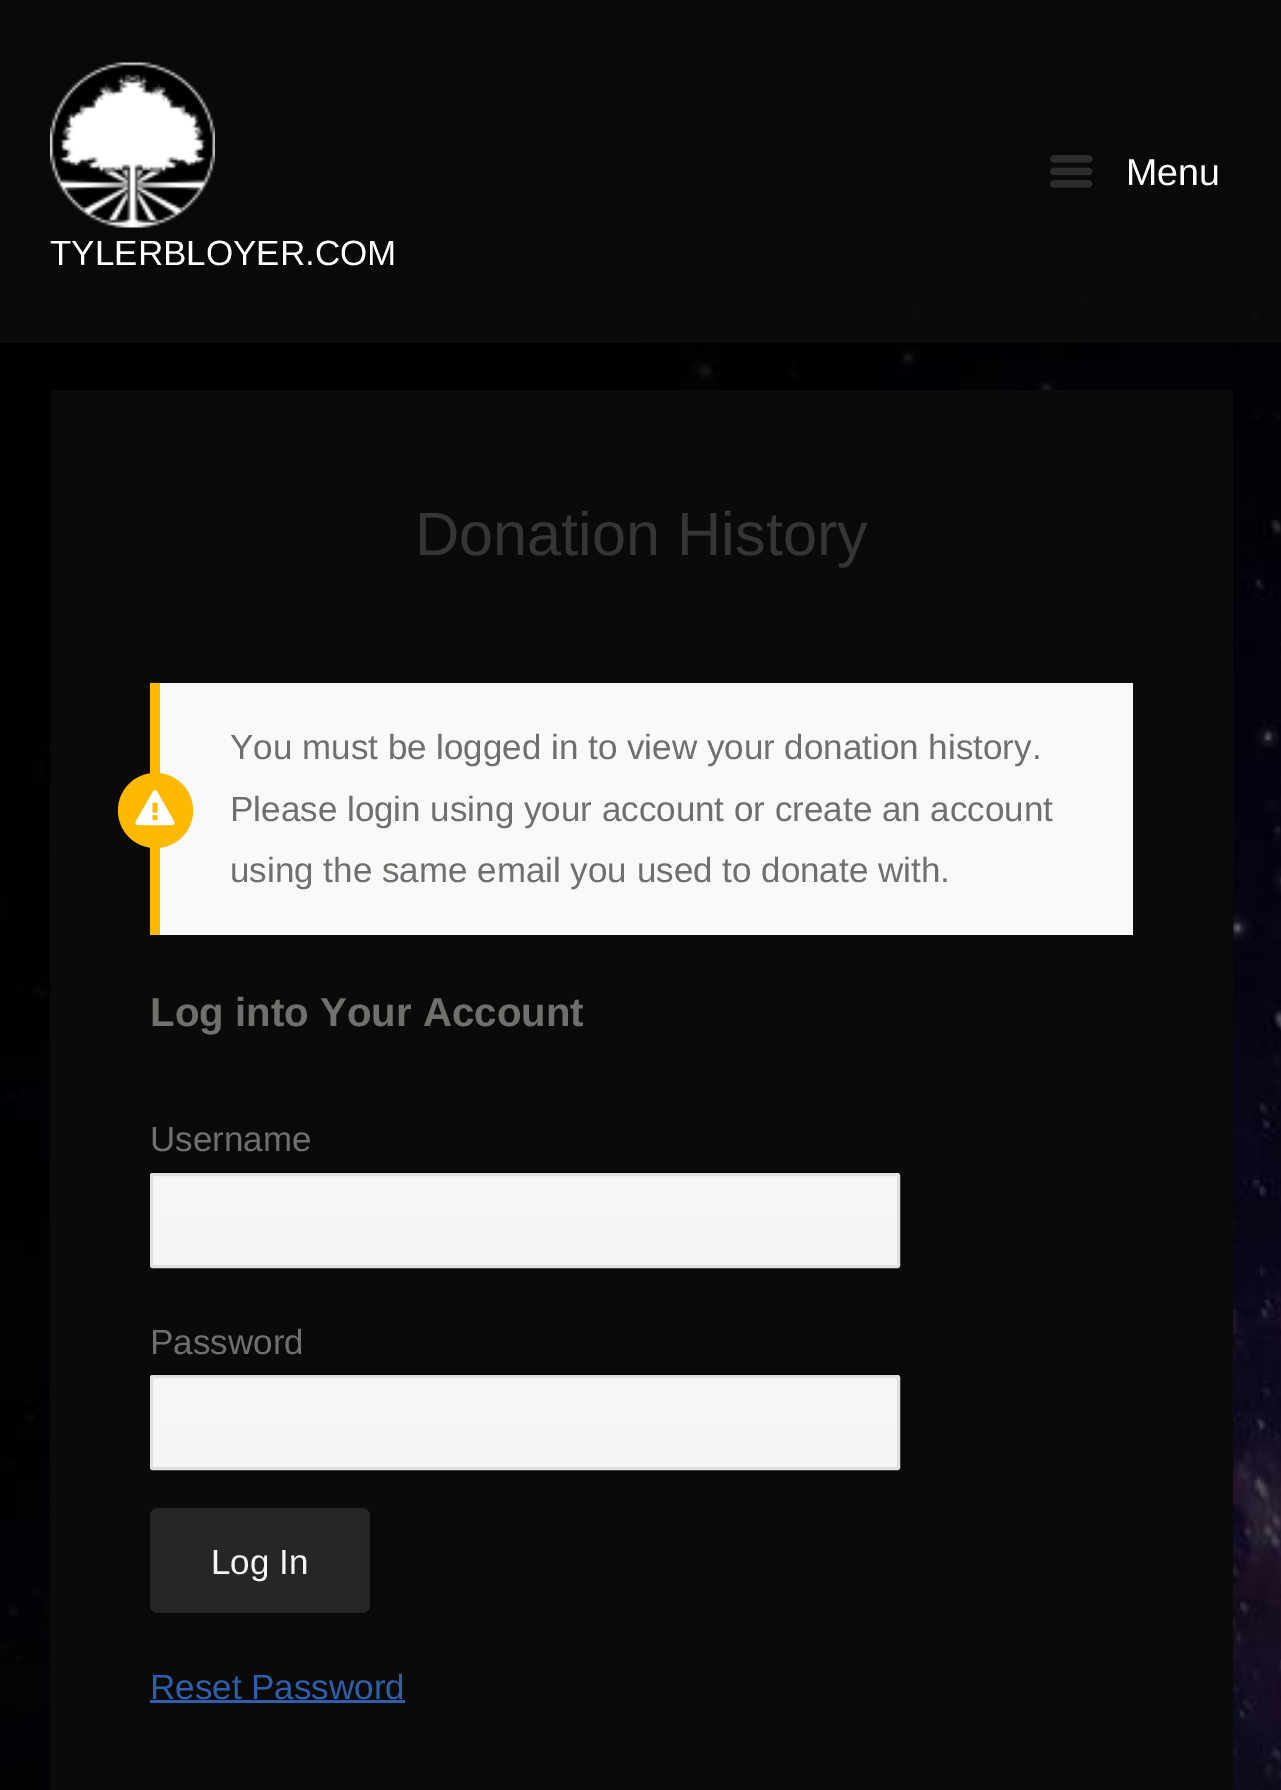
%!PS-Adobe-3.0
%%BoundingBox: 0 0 1281 1790
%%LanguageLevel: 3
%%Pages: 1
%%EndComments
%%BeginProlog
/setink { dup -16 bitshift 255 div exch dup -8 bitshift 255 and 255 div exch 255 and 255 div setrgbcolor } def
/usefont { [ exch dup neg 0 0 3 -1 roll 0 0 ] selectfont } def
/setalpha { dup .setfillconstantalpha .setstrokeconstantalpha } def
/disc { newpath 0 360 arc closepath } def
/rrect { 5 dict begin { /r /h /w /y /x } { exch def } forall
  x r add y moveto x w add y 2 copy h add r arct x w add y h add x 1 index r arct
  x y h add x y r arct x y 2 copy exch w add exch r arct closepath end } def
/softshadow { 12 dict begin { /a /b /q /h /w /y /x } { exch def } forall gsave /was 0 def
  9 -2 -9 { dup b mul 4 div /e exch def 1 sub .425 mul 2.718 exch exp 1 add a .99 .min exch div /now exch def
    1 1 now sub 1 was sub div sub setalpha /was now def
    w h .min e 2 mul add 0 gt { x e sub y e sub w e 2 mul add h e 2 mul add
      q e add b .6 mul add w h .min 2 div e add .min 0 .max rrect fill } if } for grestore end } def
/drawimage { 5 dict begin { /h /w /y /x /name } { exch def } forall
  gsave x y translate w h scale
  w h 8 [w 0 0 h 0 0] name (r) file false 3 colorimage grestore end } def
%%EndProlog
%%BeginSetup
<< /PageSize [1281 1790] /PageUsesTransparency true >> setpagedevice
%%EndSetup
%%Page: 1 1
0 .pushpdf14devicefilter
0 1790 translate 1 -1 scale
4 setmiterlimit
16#FFFFFF setink
0 0 1281 1790 rectfill
(img1.raw) 0 0 1281 1790 drawimage
0.86 setalpha
16#0A0A0A setink
0 0 1281 343 rectfill
1 setalpha
(img2.raw) 1050 155 43 33 drawimage
/LiberationSans-Regular 37.5 usefont
16#FFFFFF setink
1126 185 moveto (Menu) show
(img3.raw) 50 62 165 166 drawimage
/LiberationSans-Regular 35 usefont
50 265 moveto (TYLERBLOYER.COM) show
16#000000 setink
50 393 1183 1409 0 4 0.18 softshadow
16#0A0A0A setink
50 390 1183 1400 rectfill
/LiberationSans-Regular 61.25 usefont
16#373435 setink
415 555 moveto (Donation History) show
16#F9F9F9 setink
160 683 973 252 rectfill
16#FFBA00 setink
150 683 10 252 rectfill
/LiberationSans-Regular 35 usefont
16#716F6C setink
230 759 moveto (You must be logged in to view your donation history.) show
16#FFBA00 setink
155.5 810.5 37.5 disc fill
(img4.raw) 135 790 40 36 drawimage
16#716F6C setink
230 821 moveto (Please login using your account or create an account) show
230 882 moveto (using the same email you used to donate with.) show
/LiberationSans-Bold 40.25 usefont
150 1026 moveto (Log into Your Account) show
/LiberationSans-Regular 35 usefont
150 1151 moveto (Username) show
gsave 150 1175 moveto 900 1175 lineto 900 1265 lineto 150 1265 lineto closepath clip newpath
<< /ShadingType 2 /ColorSpace /DeviceRGB /Coords [153 1265 153 1175] /Extend [true true] /Function << /FunctionType 2 /Domain [0 1] /C0 [0.961 0.961 0.961] /C1 [0.969 0.969 0.969] /N 1 >> >> shfill grestore
16#E0E0E0 setink
3 setlinewidth
151.5 1174.5 747 92 1 rrect stroke
16#716F6C setink
150 1354 moveto (Password) show
gsave 150 1378 moveto 900 1378 lineto 900 1468 lineto 150 1468 lineto closepath clip newpath
<< /ShadingType 2 /ColorSpace /DeviceRGB /Coords [153 1468 153 1378] /Extend [true true] /Function << /FunctionType 2 /Domain [0 1] /C0 [0.961 0.961 0.961] /C1 [0.969 0.969 0.969] /N 1 >> >> shfill grestore
16#E0E0E0 setink
151.5 1376.5 747 92 1 rrect stroke
16#262626 setink
150 1508 220 105 8 rrect fill
16#F5F5F5 setink
211 1574 moveto (Log In) show
16#2F5FAA setink
150 1699 moveto (Reset Password) show
150 1700 255 3 rectfill
.poppdf14devicefilter showpage
%%EOF
